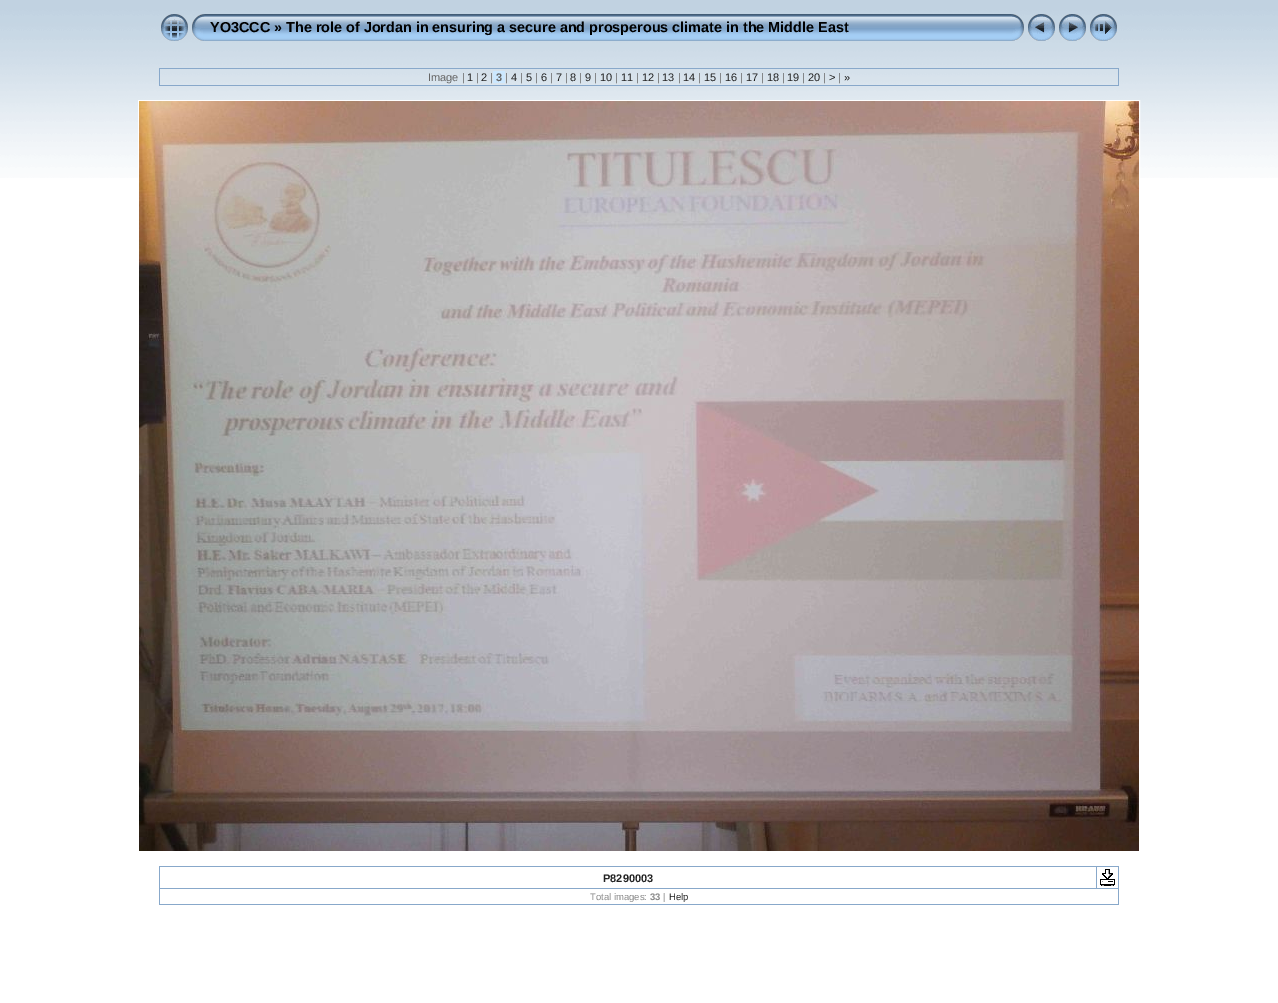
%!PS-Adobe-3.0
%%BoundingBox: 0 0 1278 1003
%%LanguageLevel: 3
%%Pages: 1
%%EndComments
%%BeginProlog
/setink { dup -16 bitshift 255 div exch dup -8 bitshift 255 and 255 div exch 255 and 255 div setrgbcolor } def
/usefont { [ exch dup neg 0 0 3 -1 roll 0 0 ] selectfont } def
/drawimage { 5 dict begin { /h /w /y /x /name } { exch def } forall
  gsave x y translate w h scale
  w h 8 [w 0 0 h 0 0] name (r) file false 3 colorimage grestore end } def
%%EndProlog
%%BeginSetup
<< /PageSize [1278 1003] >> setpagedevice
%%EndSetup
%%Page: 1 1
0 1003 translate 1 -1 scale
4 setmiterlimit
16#FFFFFF setink
0 0 1278 1003 rectfill
(img1.raw) 0 0 1278 178 drawimage
(img2.raw) 161 14 27 27 drawimage
(img3.raw) 192 14 18 27 drawimage
(img4.raw) 210 14 796 27 drawimage
/LiberationSans-Bold 14.4 usefont
16#000000 setink
210 32 moveto (YO3CCC » The role of Jordan in ensuring a secure and prosperous climate in the Middle East) show
(img5.raw) 1006 14 18 27 drawimage
(img6.raw) 1028 14 27 27 drawimage
(img7.raw) 1059 14 27 27 drawimage
(img8.raw) 1090 14 27 27 drawimage
[
    [159 68 960 1 16#88A8CA]
    [1118 68 1 18 16#88A8CA]
    [159 85 960 1 16#88A8CA]
    [159 68 1 18 16#88A8CA]
] { aload pop setink rectfill } forall
/LiberationSans-Regular 11 usefont
16#666666 setink
428 81 moveto (Image |) show
16#222222 setink
467 81 moveto (1) show
16#666666 setink
476 81 moveto (|) show
16#222222 setink
481 81 moveto (2) show
16#666666 setink
490 81 moveto (|) show
16#CCE8FF setink
493 71 12 12 rectfill
/LiberationSans-Bold 11 usefont
16#666666 setink
496 81 moveto (3) show
/LiberationSans-Regular 11 usefont
505 81 moveto (|) show
16#222222 setink
511 81 moveto (4) show
16#666666 setink
520 81 moveto (|) show
16#222222 setink
526 81 moveto (5) show
16#666666 setink
535 81 moveto (|) show
16#222222 setink
541 81 moveto (6) show
16#666666 setink
550 81 moveto (|) show
16#222222 setink
556 81 moveto (7) show
16#666666 setink
565 81 moveto (|) show
16#222222 setink
570 81 moveto (8) show
16#666666 setink
579 81 moveto (|) show
16#222222 setink
585 81 moveto (9) show
16#666666 setink
594 81 moveto (|) show
16#222222 setink
600 81 moveto (10) show
16#666666 setink
615 81 moveto (|) show
16#222222 setink
621 81 moveto (11) show
16#666666 setink
636 81 moveto (|) show
16#222222 setink
642 81 moveto (12) show
16#666666 setink
657 81 moveto (|) show
16#222222 setink
662 81 moveto (13) show
16#666666 setink
678 81 moveto (|) show
16#222222 setink
683 81 moveto (14) show
16#666666 setink
698 81 moveto (|) show
16#222222 setink
704 81 moveto (15) show
16#666666 setink
719 81 moveto (|) show
16#222222 setink
725 81 moveto (16) show
16#666666 setink
740 81 moveto (|) show
16#222222 setink
746 81 moveto (17) show
16#666666 setink
761 81 moveto (|) show
16#222222 setink
767 81 moveto (18) show
16#666666 setink
782 81 moveto (|) show
16#222222 setink
787 81 moveto (19) show
16#666666 setink
802 81 moveto (|) show
16#222222 setink
808 81 moveto (20) show
16#666666 setink
823 81 moveto (|) show
16#222222 setink
829 81 moveto (>) show
16#666666 setink
838 81 moveto (|) show
16#222222 setink
844 81 moveto (») show
16#FFFFFF setink
138.5 100.5 1001 751 rectstroke
(img9.raw) 139 101 1000 750 drawimage
[
    [159 866 960 1 16#88A8CA]
    [1118 866 1 39 16#88A8CA]
    [159 904 960 1 16#88A8CA]
    [159 866 1 39 16#88A8CA]
] { aload pop setink rectfill } forall
/LiberationSans-Bold 11 usefont
16#222222 setink
603 882 moveto (P8290003) show
16#88A8CA setink
159 888 960 1 rectfill
1096 866 1 23 rectfill
(img10.raw) 1100 869 15 17 drawimage
/LiberationSans-Regular 9.5 usefont
16#888888 setink
590 900 moveto (Total images:) show
/LiberationSans-Bold 9.5 usefont
650 900 moveto (33) show
/LiberationSans-Regular 9.5 usefont
663 900 moveto (|) show
16#222222 setink
669 900 moveto (Help) show
showpage
%%EOF
